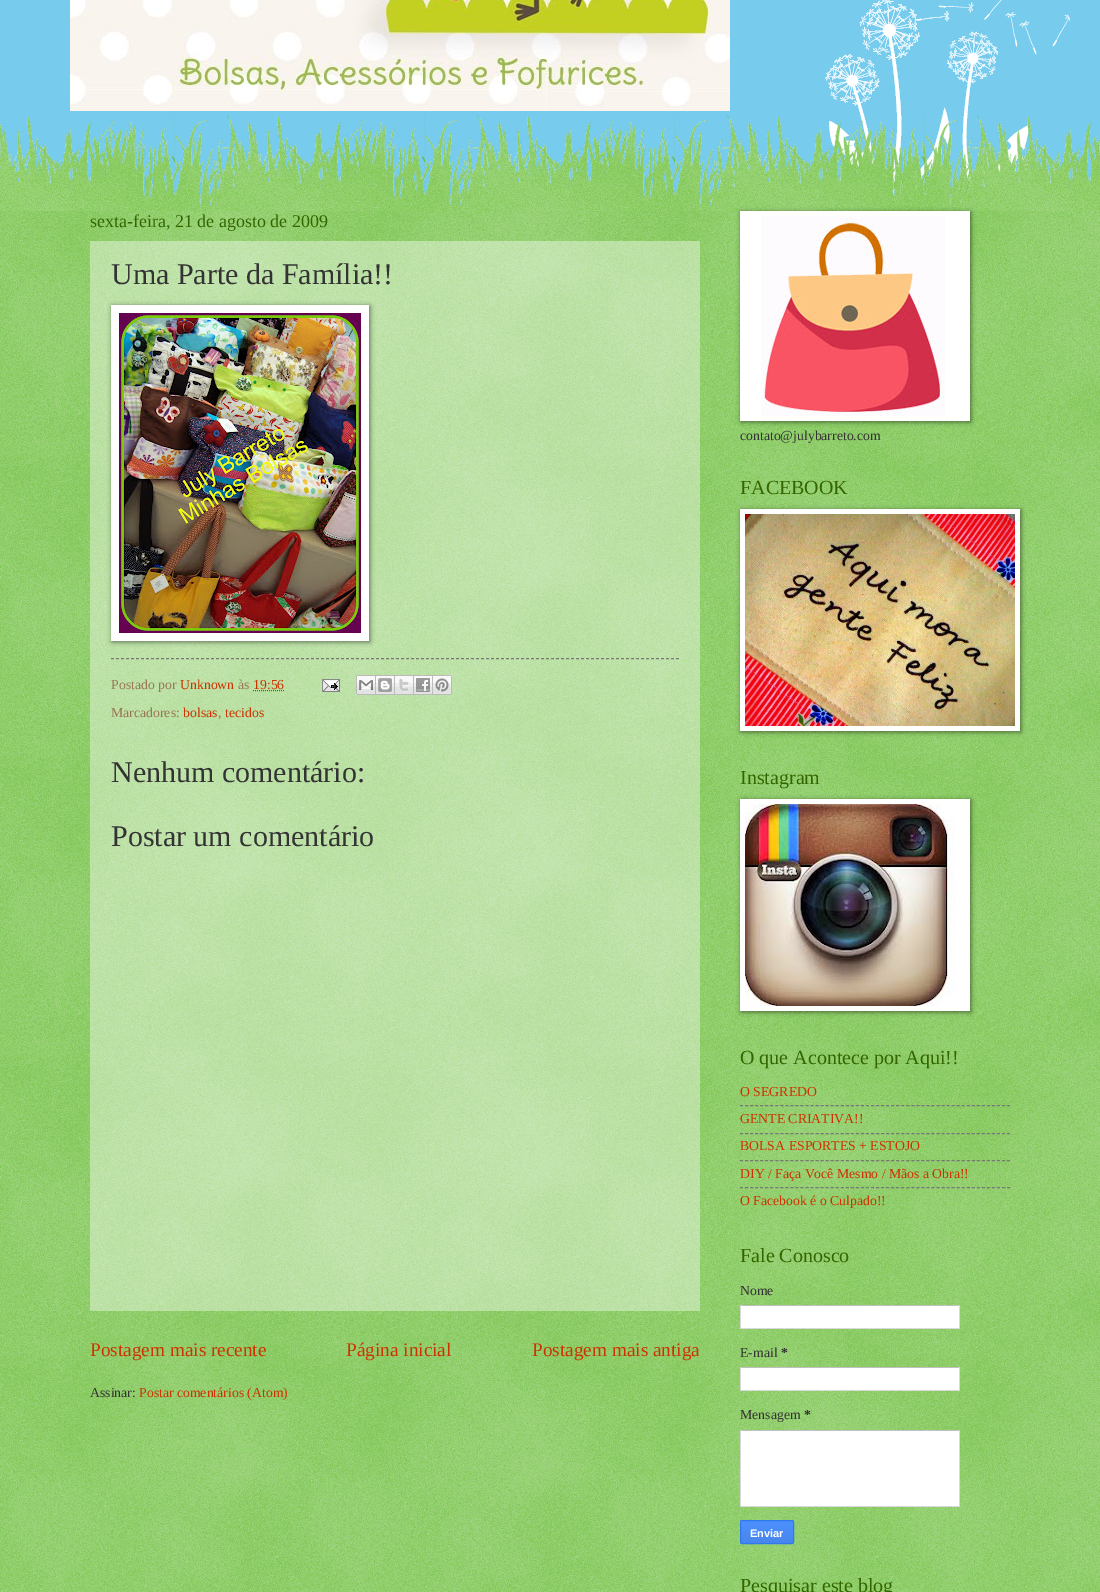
%!PS-Adobe-3.0
%%BoundingBox: 0 0 1100 1592
%%LanguageLevel: 3
%%Pages: 1
%%EndComments
%%BeginProlog
/setink { dup -16 bitshift 255 div exch dup -8 bitshift 255 and 255 div exch 255 and 255 div setrgbcolor } def
/usefont { [ exch dup neg 0 0 3 -1 roll 0 0 ] selectfont } def
/setalpha { dup .setfillconstantalpha .setstrokeconstantalpha } def
/rrect { 5 dict begin { /r /h /w /y /x } { exch def } forall
  x r add y moveto x w add y 2 copy h add r arct x w add y h add x 1 index r arct
  x y h add x y r arct x y 2 copy exch w add exch r arct closepath end } def
/softshadow { 12 dict begin { /a /b /q /h /w /y /x } { exch def } forall gsave /was 0 def
  9 -2 -9 { dup b mul 4 div /e exch def 1 sub .425 mul 2.718 exch exp 1 add a .99 .min exch div /now exch def
    1 1 now sub 1 was sub div sub setalpha /was now def
    w h .min e 2 mul add 0 gt { x e sub y e sub w e 2 mul add h e 2 mul add
      q e add b .6 mul add w h .min 2 div e add .min 0 .max rrect fill } if } for grestore end } def
/drawimage { 5 dict begin { /h /w /y /x /name } { exch def } forall
  gsave x y translate w h scale
  w h 8 [w 0 0 h 0 0] name (r) file false 3 colorimage grestore end } def
%%EndProlog
%%BeginSetup
<< /PageSize [1100 1592] /PageUsesTransparency true >> setpagedevice
%%EndSetup
%%Page: 1 1
0 .pushpdf14devicefilter
0 1592 translate 1 -1 scale
4 setmiterlimit
16#77CCEE setink
0 0 1100 1592 rectfill
(img1.raw) 70 0 660 111 drawimage
16#66BB33 setink
0 211 1100 1381 rectfill
(img2.raw) 0 211 1100 1381 drawimage
(img3.raw) 820 0 250 206 drawimage
(img4.raw) 0 115 1100 96 drawimage
/LiberationSerif-Regular 18 usefont
16#336600 setink
90 227 moveto (sexta-feira, 21 de agosto de 2009) show
0.4 setalpha
16#FFFFFF setink
90 241 610 1070 rectfill
/LiberationSerif-Regular 30 usefont
1 setalpha
16#333333 setink
111 284 moveto (Uma Parte da Família!!) show
16#000000 setink
112 306 258 336 0 2.5 0.5 softshadow
16#FFFFFF setink
111 305 258 336 rectfill
(img5.raw) 119 313 242 320 drawimage
16#777777 setink
[3 2] 0 setdash
111 658.5 moveto 679 658.5 lineto stroke
/LiberationSerif-Regular 13.75 usefont
16#997755 setink
111 689 moveto (Postado por) show
16#CC3300 setink
180 689 moveto (Unknown) show
16#997755 setink
238 689 moveto (às) show
16#CC3300 setink
253 689 moveto (19:56) show
[1 1] 0 setdash
253 690.5 moveto 284.5 690.5 lineto stroke
(img6.raw) 322 679 18 13 drawimage
(img7.raw) 356 675 20 20 drawimage
(img8.raw) 376 675 19 20 drawimage
(img9.raw) 395 675 19 20 drawimage
(img10.raw) 414 675 19 20 drawimage
(img11.raw) 433 675 19 20 drawimage
16#997755 setink
111 717 moveto (Marcadores:) show
16#CC3300 setink
183 717 moveto (bolsas) show
16#997755 setink
218 717 moveto (,) show
16#CC3300 setink
225 717 moveto (tecidos) show
/LiberationSerif-Regular 30 usefont
16#333333 setink
111 782 moveto (Nenhum comentário:) show
111 846 moveto (Postar um comentário) show
/LiberationSerif-Regular 19.25 usefont
16#CC3300 setink
[
    [(Postagem mais recente) 90 1356]
    [(Página inicial) 346 1356]
    [(Postagem mais antiga) 532 1356]
] { aload pop moveto show } forall
/LiberationSerif-Regular 13.75 usefont
16#333333 setink
90 1397 moveto (Assinar:) show
16#CC3300 setink
139 1397 moveto (Postar comentários \(Atom\)) show
16#000000 setink
741 212 230 210 0 2.5 0.5 softshadow
16#FFFFFF setink
740 211 230 210 rectfill
(img12.raw) 761 216 184 200 drawimage
16#333333 setink
740 440 moveto (contato@julybarreto.com) show
/LiberationSerif-Regular 20 usefont
16#336600 setink
740 494 moveto (FACEBOOK) show
16#000000 setink
741 510 280 222 0 2.5 0.5 softshadow
16#FFFFFF setink
740 509 280 222 rectfill
(img13.raw) 745 514 270 212 drawimage
16#336600 setink
740 784 moveto (Instagram) show
16#000000 setink
741 800 230 212 0 2.5 0.5 softshadow
16#FFFFFF setink
740 799 230 212 rectfill
(img14.raw) 745 804 211 202 drawimage
16#336600 setink
740 1064 moveto (O que Acontece por Aqui!!) show
/LiberationSerif-Regular 13.75 usefont
16#CC3300 setink
740 1096 moveto (O SEGREDO) show
16#777777 setink
[3 2.04] 0 setdash
740 1105.5 moveto 1010 1105.5 lineto stroke
16#CC3300 setink
740 1123 moveto (GENTE CRIATIVA!!) show
16#777777 setink
740 1133.5 moveto 1010 1133.5 lineto stroke
16#CC3300 setink
740 1150 moveto (BOLSA ESPORTES + ESTOJO) show
16#777777 setink
740 1160.5 moveto 1010 1160.5 lineto stroke
16#CC3300 setink
740 1178 moveto (DIY / Faça Você Mesmo / Mãos a Obra!!) show
16#777777 setink
740 1187.5 moveto 1010 1187.5 lineto stroke
16#CC3300 setink
740 1205 moveto (O Facebook é o Culpado!!) show
/LiberationSerif-Regular 20 usefont
16#336600 setink
740 1262 moveto (Fale Conosco) show
/LiberationSerif-Regular 13.75 usefont
16#333333 setink
740 1295 moveto (Nome) show
[
    [741 1306 218 22 16#FFFFFF]
    [740 1305 220 1 16#C0C0C0]
    [959 1305 1 24 16#D9D9D9]
    [740 1328 220 1 16#D9D9D9]
    [740 1305 1 24 16#D9D9D9]
] { aload pop setink rectfill } forall
16#333333 setink
740 1357 moveto (E-mail) show
/LiberationSerif-Bold 13.75 usefont
781 1357 moveto (*) show
[
    [741 1368 218 22 16#FFFFFF]
    [740 1367 220 1 16#C0C0C0]
    [959 1367 1 24 16#D9D9D9]
    [740 1390 220 1 16#D9D9D9]
    [740 1367 1 24 16#D9D9D9]
] { aload pop setink rectfill } forall
/LiberationSerif-Regular 13.75 usefont
16#333333 setink
740 1419 moveto (Mensagem) show
/LiberationSerif-Bold 13.75 usefont
804 1419 moveto (*) show
[
    [741 1431 218 75 16#FFFFFF]
    [740 1430 220 1 16#C0C0C0]
    [959 1430 1 77 16#D9D9D9]
    [740 1506 220 1 16#D9D9D9]
    [740 1430 1 77 16#D9D9D9]
] { aload pop setink rectfill } forall
gsave
740 1520 54 24 2 rrect clip newpath
gsave 740 1521 moveto 794 1521 lineto 794 1543 lineto 740 1543 lineto closepath clip newpath
<< /ShadingType 2 /ColorSpace /DeviceRGB /Coords [767 1521 767 1543] /Extend [true true] /Function << /FunctionType 2 /Domain [0 1] /C0 [0.302 0.565 0.996] /C1 [0.278 0.529 0.929] /N 1 >> >> shfill grestore
grestore
16#3079ED setink
[] 0 setdash
740.5 1520.5 53 23 1.5 rrect stroke
/LiberationSans-Bold 11 usefont
16#FFFFFF setink
750 1537 moveto (Enviar) show
/LiberationSerif-Regular 20 usefont
16#336600 setink
740 1592 moveto (Pesquisar este blog) show
.poppdf14devicefilter showpage
%%EOF
